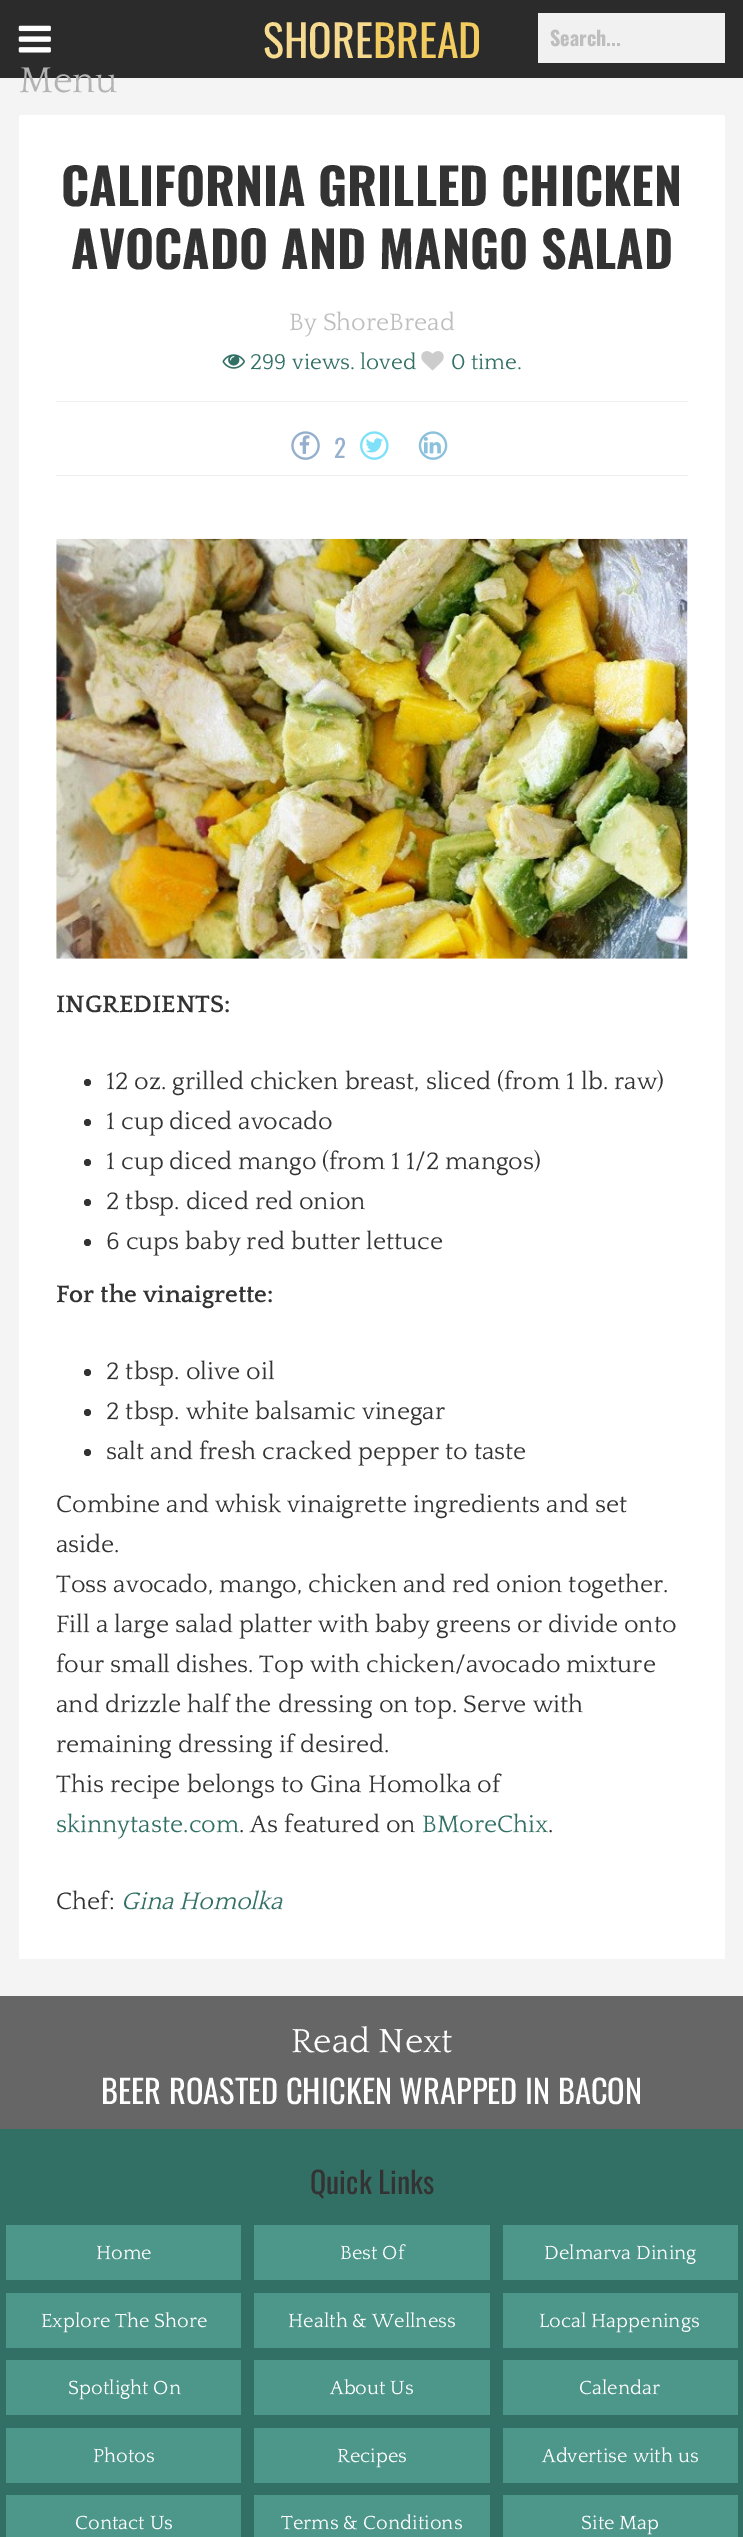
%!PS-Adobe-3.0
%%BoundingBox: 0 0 743 2537
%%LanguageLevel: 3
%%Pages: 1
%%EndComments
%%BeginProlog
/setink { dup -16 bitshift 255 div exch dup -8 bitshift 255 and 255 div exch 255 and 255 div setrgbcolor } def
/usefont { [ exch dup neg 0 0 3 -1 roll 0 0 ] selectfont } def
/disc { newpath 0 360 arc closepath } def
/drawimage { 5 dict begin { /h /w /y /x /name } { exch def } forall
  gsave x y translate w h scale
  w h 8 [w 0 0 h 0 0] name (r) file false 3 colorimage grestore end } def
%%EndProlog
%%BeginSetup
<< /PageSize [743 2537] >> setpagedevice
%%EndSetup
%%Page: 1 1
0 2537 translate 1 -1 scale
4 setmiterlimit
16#327066 setink
0 0 743 2537 rectfill
16#2B2B2B setink
0 0 743 78 rectfill
/Oswald-Regular 44 usefont
16#F6DA8F setink
263 58 moveto (SHORE) show
16#F2CC5F setink
373 58 moveto (BREAD) show
16#F1F1F1 setink
538 13 187 50 rectfill
/Oswald-Bold 20 usefont
16#BEBEBE setink
550 46 moveto (Search...) show
(img1.raw) 18 25 33 28 drawimage
16#F4F4F4 setink
0 78 743 1918 rectfill
/Quattrocento-Regular 37.5 usefont
16#B3B3B3 setink
19 92 moveto (Menu) show
16#FFFFFF setink
19 115 706 1844 rectfill
/Oswald-Bold 50 usefont
16#333333 setink
61 206 moveto (CALIFORNIA GRILLED CHICKEN) show
71 269 moveto (AVOCADO AND MANGO SALAD) show
/Quattrocento-Regular 25 usefont
16#BEBEBE setink
289 330 moveto (By ShoreBread) show
(img2.raw) 222 354 23 15 drawimage
/Quattrocento-Regular 22.5 usefont
16#327066 setink
250 369 moveto (299 views. loved) show
(img3.raw) 421 351 23 20 drawimage
451 369 moveto (0 time.) show
16#EEEEEE setink
56 401 632 1 rectfill
56 475 632 1 rectfill
(img4.raw) 291 431 29 29 drawimage
(img5.raw) 299 435 11 19 drawimage
/Oswald-Regular 25 usefont
16#96B0CD setink
334 458 moveto (2) show
(img6.raw) 360 431 29 29 drawimage
(img7.raw) 365 438 18 15 drawimage
(img8.raw) 418 431 30 29 drawimage
(img9.raw) 423 437 18 17 drawimage
(img10.raw) 56 538 632 421 drawimage
/Quattrocento-Bold 25 usefont
16#333333 setink
56 1012 moveto (INGREDIENTS:) show
87.5 1082.5 3.5 disc fill
/Quattrocento-Regular 25 usefont
106 1089 moveto (12 oz. grilled chicken breast, sliced \(from 1 lb. raw\)) show
87.5 1122.5 3.5 disc fill
106 1129 moveto (1 cup diced avocado) show
87.5 1162.5 3.5 disc fill
106 1169 moveto (1 cup diced mango \(from 1 1/2 mangos\)) show
87.5 1202.5 3.5 disc fill
106 1209 moveto (2 tbsp. diced red onion) show
87.5 1242.5 3.5 disc fill
106 1249 moveto (6 cups baby red butter lettuce) show
/Quattrocento-Bold 25 usefont
56 1302 moveto (For the vinaigrette:) show
87.5 1372.5 3.5 disc fill
/Quattrocento-Regular 25 usefont
106 1379 moveto (2 tbsp. olive oil) show
87.5 1412.5 3.5 disc fill
106 1419 moveto (2 tbsp. white balsamic vinegar) show
87.5 1452.5 3.5 disc fill
[
    [(salt and fresh cracked pepper to taste) 106 1459]
    [(Combine and whisk vinaigrette ingredients and set) 56 1512]
    [(aside.) 56 1552]
    [(Toss avocado, mango, chicken and red onion together.) 56 1592]
    [(Fill a large salad platter with baby greens or divide onto) 56 1632]
    [(four small dishes. Top with chicken/avocado mixture) 56 1672]
    [(and drizzle half the dressing on top. Serve with) 56 1712]
    [(remaining dressing if desired.) 56 1752]
    [(This recipe belongs to Gina Homolka of) 56 1792]
] { aload pop moveto show } forall
16#327066 setink
56 1832 moveto (skinnytaste.com) show
16#333333 setink
239 1832 moveto (. As featured on) show
16#327066 setink
422 1832 moveto (BMoreChix) show
16#333333 setink
548 1832 moveto (.) show
56 1909 moveto (Chef:) show
/Quattrocento-Italic 25 usefont
16#327066 setink
121 1909 moveto (Gina Homolka) show
16#666666 setink
0 1996 743 133 rectfill
/Quattrocento-Regular 35 usefont
16#FFFFFF setink
291 2052 moveto (Read Next) show
/Oswald-Regular 32.5 usefont
101 2104 moveto (BEER ROASTED CHICKEN WRAPPED IN BACON) show
/Oswald-Regular 30 usefont
16#333333 setink
310 2194 moveto (Quick Links) show
16#4C968A setink
6 2225 235 55 rectfill
/Quattrocento-Regular 20 usefont
16#FFFFFF setink
96 2259 moveto (Home) show
16#4C968A setink
254 2225 236 55 rectfill
16#FFFFFF setink
340 2259 moveto (Best Of) show
16#4C968A setink
503 2225 235 55 rectfill
16#FFFFFF setink
544 2259 moveto (Delmarva Dining) show
16#4C968A setink
6 2293 235 55 rectfill
16#FFFFFF setink
41 2327 moveto (Explore The Shore) show
16#4C968A setink
254 2293 236 55 rectfill
16#FFFFFF setink
288 2327 moveto (Health & Wellness) show
16#4C968A setink
503 2293 235 55 rectfill
16#FFFFFF setink
539 2327 moveto (Local Happenings) show
16#4C968A setink
6 2360 235 55 rectfill
16#FFFFFF setink
68 2394 moveto (Spotlight On) show
16#4C968A setink
254 2360 236 55 rectfill
16#FFFFFF setink
330 2394 moveto (About Us) show
16#4C968A setink
503 2360 235 55 rectfill
16#FFFFFF setink
579 2394 moveto (Calendar) show
16#4C968A setink
6 2428 235 55 rectfill
16#FFFFFF setink
93 2462 moveto (Photos) show
16#4C968A setink
254 2428 236 55 rectfill
16#FFFFFF setink
337 2462 moveto (Recipes) show
16#4C968A setink
503 2428 235 55 rectfill
16#FFFFFF setink
542 2462 moveto (Advertise with us) show
16#4C968A setink
6 2495 235 42 rectfill
16#FFFFFF setink
75 2529 moveto (Contact Us) show
16#4C968A setink
254 2495 236 42 rectfill
16#FFFFFF setink
281 2529 moveto (Terms & Conditions) show
16#4C968A setink
503 2495 235 42 rectfill
16#FFFFFF setink
581 2529 moveto (Site Map) show
showpage
%%EOF
